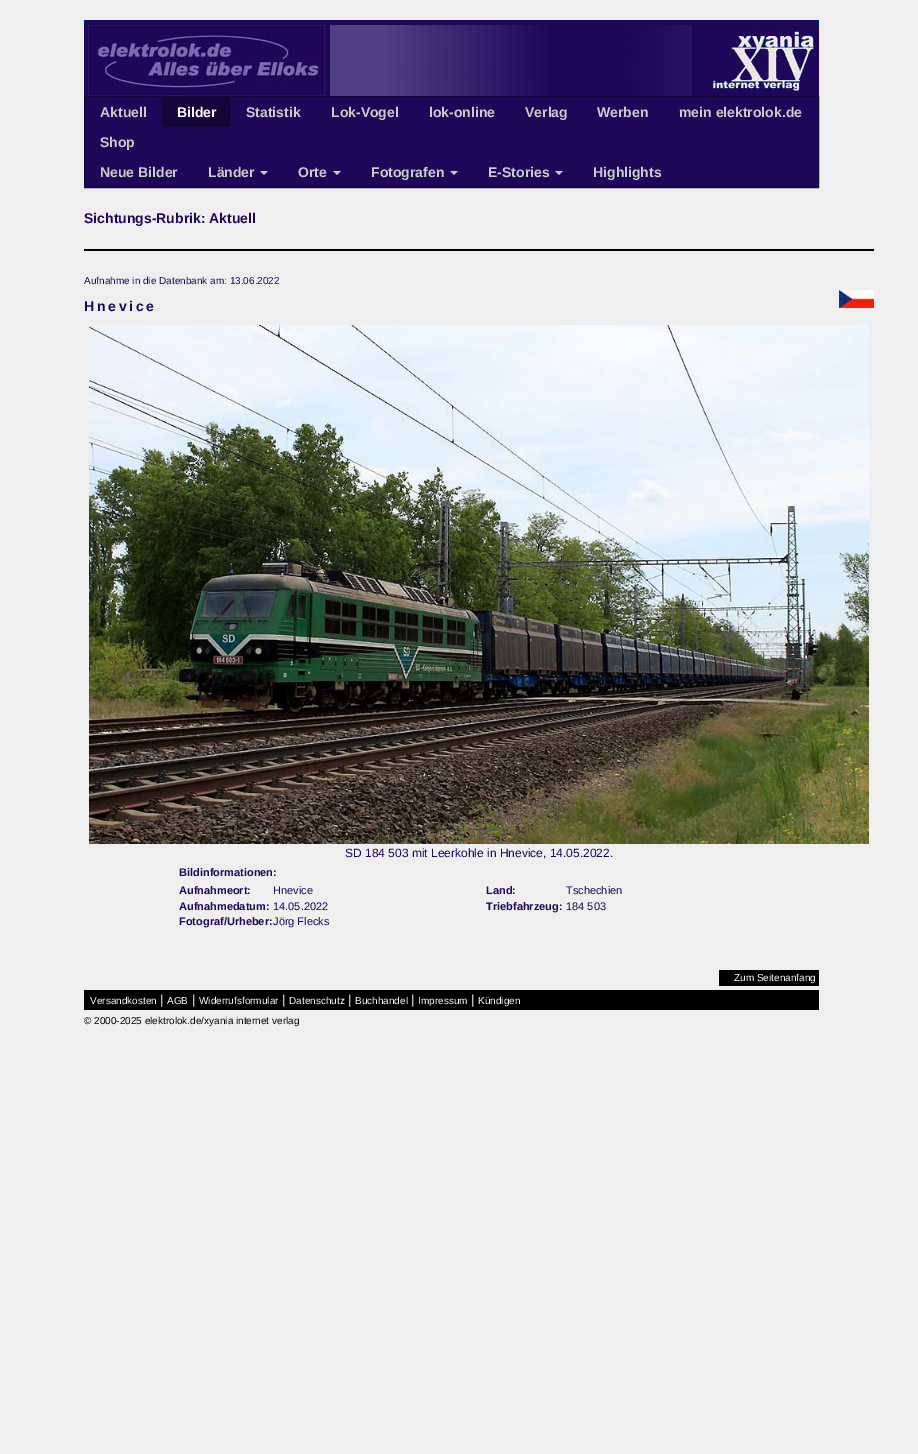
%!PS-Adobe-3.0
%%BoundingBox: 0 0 918 1454
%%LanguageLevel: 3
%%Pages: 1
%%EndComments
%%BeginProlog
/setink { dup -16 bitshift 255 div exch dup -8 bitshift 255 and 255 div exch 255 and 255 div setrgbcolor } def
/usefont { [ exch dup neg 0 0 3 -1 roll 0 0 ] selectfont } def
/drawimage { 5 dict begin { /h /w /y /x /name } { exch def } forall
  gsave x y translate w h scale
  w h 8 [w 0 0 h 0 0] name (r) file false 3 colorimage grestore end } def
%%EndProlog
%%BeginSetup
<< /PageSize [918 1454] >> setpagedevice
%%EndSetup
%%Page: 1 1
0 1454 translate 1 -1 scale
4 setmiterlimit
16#EFEFEF setink
0 0 918 1454 rectfill
[
    [84 20 4 5 16#011F68]
    [88 20 727 5 16#1E0759]
    [815 20 4 5 16#011F68]
    [84 25 4 71 16#1E0759]
    [325 25 5 71 16#1E0759]
] { aload pop setink rectfill } forall
(img1.raw) 88 25 237 71 drawimage
(img2.raw) 330 25 362 71 drawimage
692 25 127 71 rectfill
(img3.raw) 712 30 103 62 drawimage
84.5 96.5 moveto 818.5 96.5 lineto 818.5 187.5 lineto 84.5 187.5 lineto closepath gsave fill grestore
16#14053A setink
stroke
/LiberationSans-Bold 14 usefont
16#CCCCCC setink
100 117 moveto (Aktuell) show
16#14053A setink
162 97 69 30 rectfill
16#FFFFFF setink
177 117 moveto (Bilder) show
16#CCCCCC setink
[
    [(Statistik) 246 117]
    [(Lok-Vogel) 331 117]
    [(lok-online) 429 117]
    [(Verlag) 525 117]
    [(Werben) 597 117]
    [(mein elektrolok.de) 679 117]
    [(Shop) 100 147]
    [(Neue Bilder) 100 177]
    [(Länder) 208 177]
] { aload pop moveto show } forall
260 171 moveto 268 171 lineto 264 175 lineto closepath fill
298 177 moveto (Orte) show
333 171 moveto 341 171 lineto 337 175 lineto closepath fill
371 177 moveto (Fotografen) show
450 171 moveto 458 171 lineto 454 175 lineto closepath fill
488 177 moveto (E-Stories) show
555 171 moveto 563 171 lineto 559 175 lineto closepath fill
593 177 moveto (Highlights) show
16#1E0759 setink
84 223 moveto (Sichtungs-Rubrik: Aktuell) show
16#000000 setink
84 249 790 2 rectfill
/LiberationSans-Regular 10 usefont
16#1E0759 setink
84 284 moveto (Aufnahme in die Datenbank am: 13.06.2022) show
/LiberationSans-Bold 14 usefont
84 311 moveto 2.75 0 (Hnevice) ashow
(img4.raw) 839 290 35 18 drawimage
(img5.raw) 89 325 780 519 drawimage
/LiberationSans-Regular 12 usefont
345 857 moveto (SD 184 503 mit Leerkohle in Hnevice, 14.05.2022.) show
/LiberationSans-Bold 11 usefont
179 876 moveto (Bildinformationen:) show
179 894 moveto (Aufnahmeort:) show
/LiberationSans-Regular 11 usefont
273 894 moveto (Hnevice) show
/LiberationSans-Bold 11 usefont
486 894 moveto (Land:) show
/LiberationSans-Regular 11 usefont
566 894 moveto (Tschechien) show
/LiberationSans-Bold 11 usefont
179 910 moveto (Aufnahmedatum:) show
/LiberationSans-Regular 11 usefont
273 910 moveto (14.05.2022) show
/LiberationSans-Bold 11 usefont
486 910 moveto (Triebfahrzeug:) show
/LiberationSans-Regular 11 usefont
566 910 moveto (184 503) show
/LiberationSans-Bold 11 usefont
179 925 moveto (Fotograf/Urheber:) show
/LiberationSans-Regular 11 usefont
273 925 moveto (Jörg Flecks) show
16#000000 setink
719 970 100 16 rectfill
/LiberationSans-Regular 10 usefont
16#FFFFFF setink
734 981 moveto (Zum Seitenanfang) show
16#000000 setink
84 990 735 20 rectfill
16#FFFFFF setink
90 1004 moveto (Versandkosten) show
/LiberationSans-Regular 13 usefont
160 1004 moveto (|) show
/LiberationSans-Regular 10 usefont
167 1004 moveto (AGB) show
/LiberationSans-Regular 13 usefont
192 1004 moveto (|) show
/LiberationSans-Regular 10 usefont
199 1004 moveto (Widerrufsformular) show
/LiberationSans-Regular 13 usefont
282 1004 moveto (|) show
/LiberationSans-Regular 10 usefont
289 1004 moveto (Datenschutz) show
/LiberationSans-Regular 13 usefont
348 1004 moveto (|) show
/LiberationSans-Regular 10 usefont
355 1004 moveto (Buchhandel) show
/LiberationSans-Regular 13 usefont
411 1004 moveto (|) show
/LiberationSans-Regular 10 usefont
418 1004 moveto (Impressum) show
/LiberationSans-Regular 13 usefont
471 1004 moveto (|) show
/LiberationSans-Regular 10 usefont
478 1004 moveto (Kündigen) show
16#000000 setink
84 1024 moveto (© 2000-2025 elektrolok.de/xyania internet verlag) show
showpage
%%EOF
